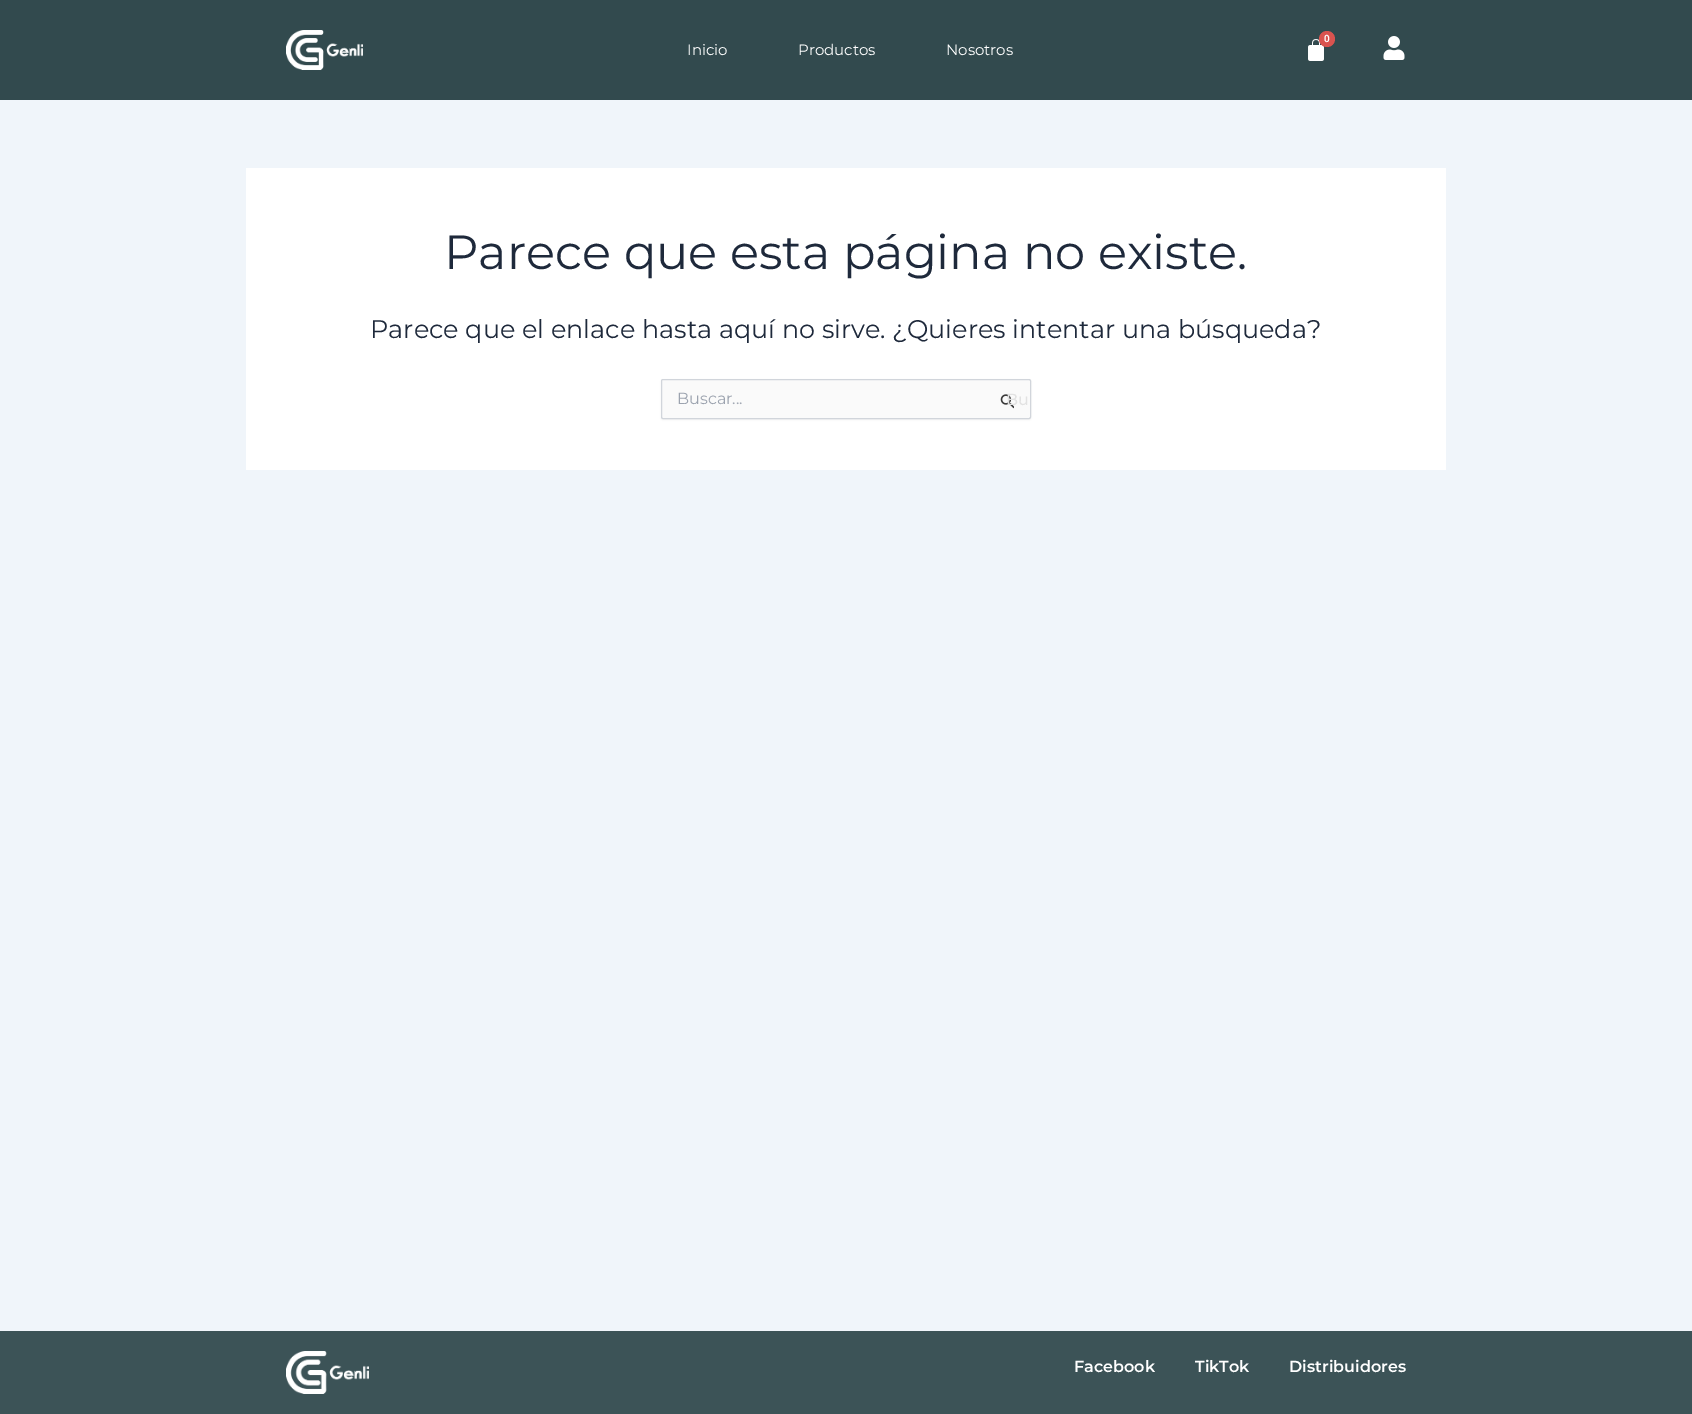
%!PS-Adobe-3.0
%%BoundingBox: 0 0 1692 1414
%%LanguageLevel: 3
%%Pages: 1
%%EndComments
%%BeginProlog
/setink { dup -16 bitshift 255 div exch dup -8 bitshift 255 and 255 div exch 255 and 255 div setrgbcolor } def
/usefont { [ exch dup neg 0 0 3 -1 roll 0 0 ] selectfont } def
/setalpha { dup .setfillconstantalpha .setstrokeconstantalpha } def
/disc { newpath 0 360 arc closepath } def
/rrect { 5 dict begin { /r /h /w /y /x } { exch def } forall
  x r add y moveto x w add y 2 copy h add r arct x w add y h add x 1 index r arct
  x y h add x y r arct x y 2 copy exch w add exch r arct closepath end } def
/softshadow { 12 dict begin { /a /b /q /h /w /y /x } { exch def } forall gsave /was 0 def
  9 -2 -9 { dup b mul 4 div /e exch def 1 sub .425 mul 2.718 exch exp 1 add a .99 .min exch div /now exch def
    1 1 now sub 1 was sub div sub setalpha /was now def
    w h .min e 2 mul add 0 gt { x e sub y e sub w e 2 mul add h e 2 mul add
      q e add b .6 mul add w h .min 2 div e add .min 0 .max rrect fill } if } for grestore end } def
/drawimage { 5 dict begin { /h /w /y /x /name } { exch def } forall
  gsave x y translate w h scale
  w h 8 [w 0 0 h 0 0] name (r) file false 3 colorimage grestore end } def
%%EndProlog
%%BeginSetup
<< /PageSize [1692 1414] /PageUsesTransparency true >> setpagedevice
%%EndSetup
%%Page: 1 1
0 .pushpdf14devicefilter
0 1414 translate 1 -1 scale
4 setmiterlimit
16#F0F5FA setink
0 0 1692 1414 rectfill
16#324A4E setink
0 0 1692 100 rectfill
(img1.raw) 286 30 77 40 drawimage
(img2.raw) 1308 39 16 22 drawimage
16#D9534F setink
1327 39 8 disc fill
/Roboto-SemiBold 10 usefont
16#FFFFFF setink
1324 42 moveto (0) show
(img3.raw) 1383 36 22 24 drawimage
/Montserrat-Regular 15 usefont
[
    [(Inicio) 687 55]
    [(Productos) 798 55]
    [(Nosotros) 946 55]
] { aload pop moveto show } forall
246 168 1200 302 rectfill
/Montserrat-Regular 48 usefont
16#1E293B setink
444 269 moveto (Parece que esta página no existe.) show
/Montserrat-Regular 25.5 usefont
370 338 moveto (Parece que el enlace hasta aquí no sirve. ¿Quieres intentar una búsqueda?) show
16#000000 setink
661 380 370 40 2 1 0.05 softshadow
16#FAFAFA setink
661.5 379.5 369 39 1.5 rrect gsave fill grestore
16#D1D5DB setink
stroke
/Montserrat-Regular 16 usefont
16#9CA3AF setink
677 404 moveto (Buscar...) show
(img4.raw) 1000 394 14 15 drawimage
/Montserrat-Medium 16 usefont
16#E2E2E2 setink
1006 405 moveto (Bu) show
16#3C5357 setink
0 1331 1692 83 rectfill
(img5.raw) 286 1351 83 43 drawimage
/Montserrat-SemiBold 16 usefont
16#FFFFFF setink
[
    [(Facebook) 1074 1372]
    [(TikTok) 1195 1372]
    [(Distribuidores) 1289 1372]
] { aload pop moveto show } forall
.poppdf14devicefilter showpage
%%EOF
